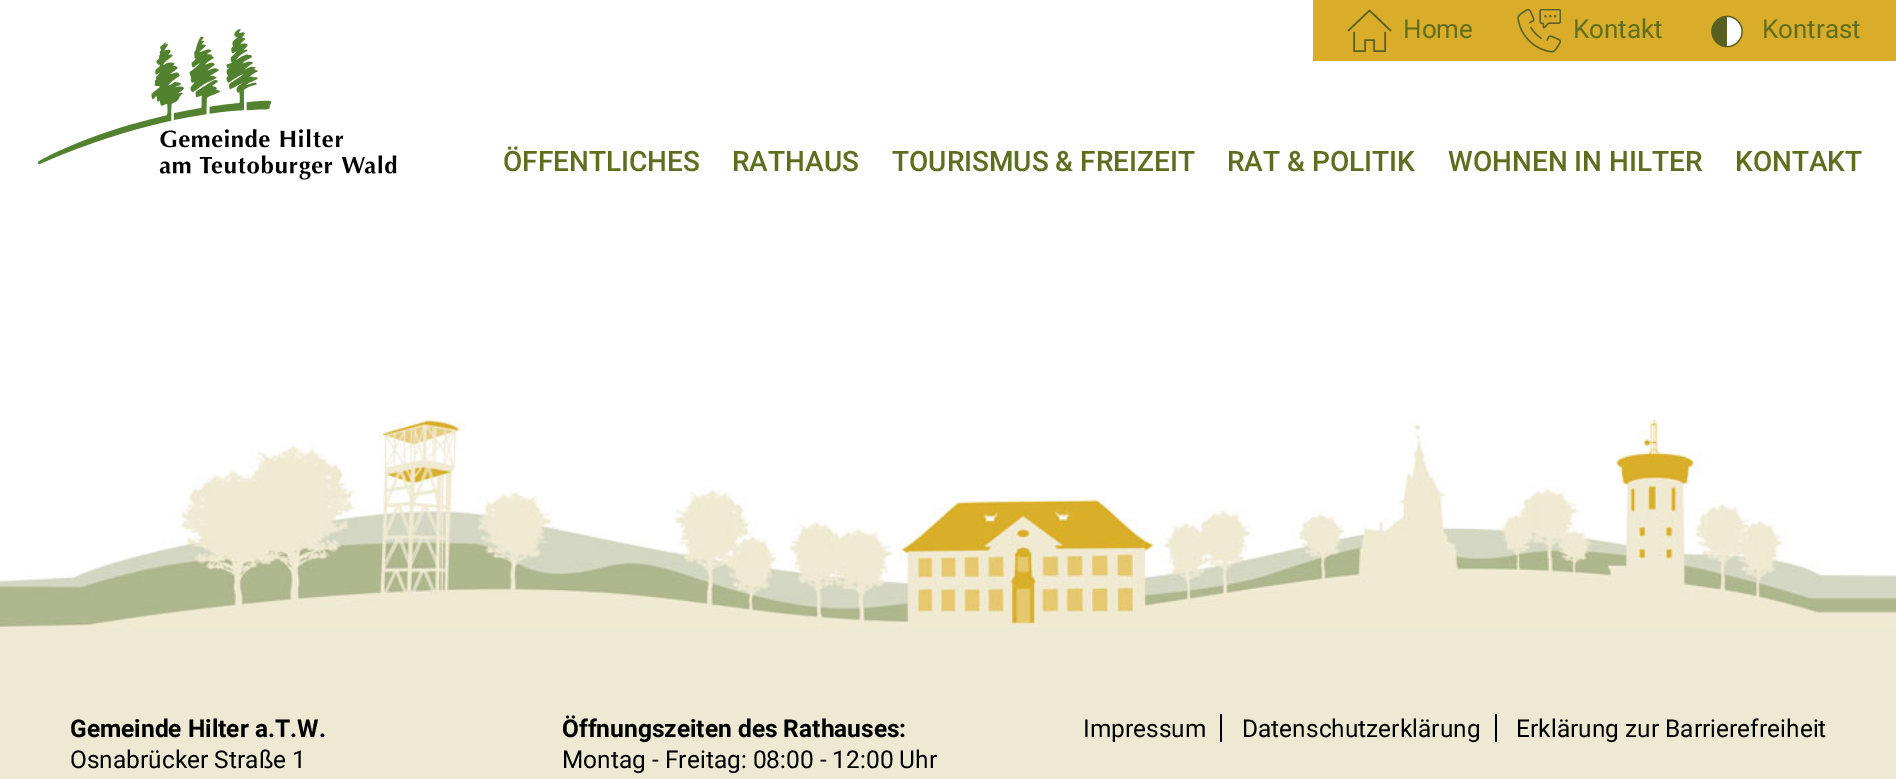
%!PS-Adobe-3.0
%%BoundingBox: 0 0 1896 779
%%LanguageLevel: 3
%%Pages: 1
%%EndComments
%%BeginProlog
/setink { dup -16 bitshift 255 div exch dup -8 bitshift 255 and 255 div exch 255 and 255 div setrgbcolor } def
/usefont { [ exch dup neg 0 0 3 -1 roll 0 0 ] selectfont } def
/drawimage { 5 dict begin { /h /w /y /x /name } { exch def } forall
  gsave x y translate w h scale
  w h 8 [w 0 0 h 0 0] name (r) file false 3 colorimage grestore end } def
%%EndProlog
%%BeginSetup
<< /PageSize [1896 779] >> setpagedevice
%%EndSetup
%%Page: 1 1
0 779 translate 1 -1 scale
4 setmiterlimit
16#EEE9D2 setink
0 0 1896 779 rectfill
16#FFFFFF setink
0 0 1896 420 rectfill
(img1.raw) 38 29 359 151 drawimage
16#D9AD29 setink
1313 0 583 61 rectfill
/Roboto-Regular 26 usefont
16#5E6E1F setink
1403 38 moveto (Home) show
16#5A6021 setink
1.5 setlinewidth
1 setlinecap
1 setlinejoin
1354 32.5 moveto 1354 51 lineto 1365 51 lineto 1365 40 lineto 1374 40 lineto 1374 51 lineto 1385 51 lineto 1385 32.5 lineto 1390.5 30.5 moveto 1369.5 10.5 lineto 1348.5 30.5 lineto stroke
(img2.raw) 1517 9 44 44 drawimage
16#5E6E1F setink
1573 38 moveto (Kontakt) show
(img3.raw) 1711 15 32 33 drawimage
1762 38 moveto (Kontrast) show
/Roboto-Medium 28 usefont
[
    [(ÖFFENTLICHES) 503 171]
    [(RATHAUS) 732 171]
    [(TOURISMUS & FREIZEIT) 892 171]
    [(RAT & POLITIK) 1227 171]
    [(WOHNEN IN HILTER) 1448 171]
    [(KONTAKT) 1735 171]
] { aload pop moveto show } forall
(img4.raw) 0 420 1896 207 drawimage
/Roboto-Bold 24.5 usefont
16#000000 setink
70 737 moveto (Gemeinde Hilter a.T.W.) show
/Roboto-Regular 24.5 usefont
70 768 moveto (Osnabrücker Straße 1) show
/Roboto-Bold 24.5 usefont
562 737 moveto (Öffnungszeiten des Rathauses:) show
/Roboto-Regular 24.5 usefont
562 768 moveto (Montag - Freitag: 08:00 - 12:00 Uhr) show
1220 714 2 28 rectfill
1083 737 moveto (Impressum) show
1495 714 2 28 rectfill
1242 737 moveto (Datenschutzerklärung) show
1516 737 moveto (Erklärung zur Barrierefreiheit) show
showpage
%%EOF
